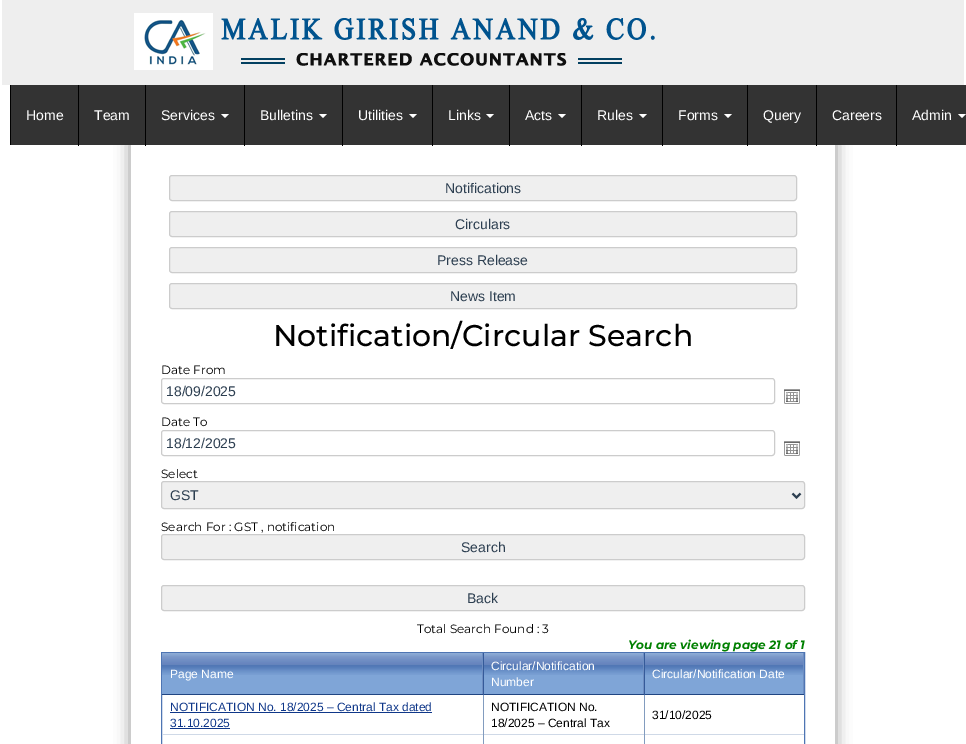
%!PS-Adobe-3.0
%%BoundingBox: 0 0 966 744
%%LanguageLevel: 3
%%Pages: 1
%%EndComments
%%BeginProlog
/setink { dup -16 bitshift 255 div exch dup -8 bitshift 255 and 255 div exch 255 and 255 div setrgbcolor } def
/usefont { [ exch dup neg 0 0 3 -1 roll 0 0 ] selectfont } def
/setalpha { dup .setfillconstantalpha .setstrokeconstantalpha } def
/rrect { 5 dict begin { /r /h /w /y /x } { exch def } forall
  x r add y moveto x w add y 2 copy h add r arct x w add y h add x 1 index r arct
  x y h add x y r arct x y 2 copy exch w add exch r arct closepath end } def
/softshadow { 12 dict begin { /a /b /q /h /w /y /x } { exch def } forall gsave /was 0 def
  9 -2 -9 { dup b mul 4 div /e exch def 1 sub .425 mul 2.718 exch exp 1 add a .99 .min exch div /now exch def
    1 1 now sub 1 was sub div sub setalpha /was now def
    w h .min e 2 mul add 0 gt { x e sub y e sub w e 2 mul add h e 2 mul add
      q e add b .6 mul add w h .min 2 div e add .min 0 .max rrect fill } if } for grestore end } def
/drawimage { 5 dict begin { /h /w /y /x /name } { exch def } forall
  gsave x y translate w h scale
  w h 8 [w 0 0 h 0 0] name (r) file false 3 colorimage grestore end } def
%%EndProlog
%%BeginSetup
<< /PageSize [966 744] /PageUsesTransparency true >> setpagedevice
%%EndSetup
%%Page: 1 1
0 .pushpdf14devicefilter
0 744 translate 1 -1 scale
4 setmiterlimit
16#FFFFFF setink
0 0 966 744 rectfill
16#EEEEEE setink
2 0 962 85 rectfill
(img1.raw) 134 13 521 57 drawimage
16#000000 setink
130 139 706 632 4 7.5 0.4 softshadow
[
    [11 85 955 60 16#333333]
    [10 85 1 60 16#000000]
    [78 85 1 61 16#000000]
] { aload pop setink rectfill } forall
/LiberationSans-Regular 14 usefont
16#FFFFFF setink
26 120 moveto (Home) show
131 145 704 599 rectfill
16#000000 setink
145 85 1 61 rectfill
16#FFFFFF setink
94 120 moveto (Team) show
16#000000 setink
244 85 1 61 rectfill
16#FFFFFF setink
161 120 moveto (Services) show
221 114 moveto 229 114 lineto 225 118 lineto closepath fill
16#000000 setink
342 85 1 61 rectfill
16#FFFFFF setink
260 120 moveto (Bulletins) show
319 114 moveto 327 114 lineto 323 118 lineto closepath fill
16#000000 setink
432 85 1 61 rectfill
16#FFFFFF setink
358 120 moveto (Utilities) show
409 114 moveto 417 114 lineto 413 118 lineto closepath fill
16#000000 setink
509 85 1 61 rectfill
16#FFFFFF setink
448 120 moveto (Links) show
486 114 moveto 494 114 lineto 490 118 lineto closepath fill
16#000000 setink
581 85 1 61 rectfill
16#FFFFFF setink
525 120 moveto (Acts) show
558 114 moveto 566 114 lineto 562 118 lineto closepath fill
16#000000 setink
662 85 1 61 rectfill
16#FFFFFF setink
597 120 moveto (Rules) show
639 114 moveto 647 114 lineto 643 118 lineto closepath fill
16#000000 setink
747 85 1 61 rectfill
16#FFFFFF setink
678 120 moveto (Forms) show
724 114 moveto 732 114 lineto 728 118 lineto closepath fill
16#000000 setink
816 85 1 61 rectfill
16#FFFFFF setink
763 120 moveto (Query) show
16#000000 setink
896 85 1 61 rectfill
16#FFFFFF setink
832 120 moveto (Careers) show
912 120 moveto (Admin) show
958 114 moveto 966 114 lineto 962 118 lineto closepath fill
16#EFEFEF setink
169.5 175.5 627 25 2.5 rrect gsave fill grestore
16#CCCCCC setink
stroke
16#2C3E50 setink
445 193 moveto (Notifications) show
16#EFEFEF setink
169.5 211.5 627 25 2.5 rrect gsave fill grestore
16#CCCCCC setink
stroke
16#2C3E50 setink
455 229 moveto (Circulars) show
16#EFEFEF setink
169.5 247.5 627 25 2.5 rrect gsave fill grestore
16#CCCCCC setink
stroke
16#2C3E50 setink
437 265 moveto (Press Release) show
16#EFEFEF setink
169.5 283.5 627 25 2.5 rrect gsave fill grestore
16#CCCCCC setink
stroke
16#2C3E50 setink
450 301 moveto (News Item) show
/Montserrat-Medium 30 usefont
16#000000 setink
273 346 moveto (Notification/Circular Search) show
/Montserrat-Regular 12 usefont
161 374 moveto (Date From) show
16#CCCCCC setink
161.5 378.5 613 25 2.5 rrect stroke
/LiberationSans-Regular 14 usefont
16#2C3E50 setink
166 396 moveto (18/09/2025) show
(img2.raw) 784 389 16 15 drawimage
/Montserrat-Regular 12 usefont
16#000000 setink
161 426 moveto (Date To) show
16#CCCCCC setink
161.5 430.5 613 25 2.5 rrect stroke
/LiberationSans-Regular 14 usefont
16#2C3E50 setink
166 448 moveto (18/12/2025) show
(img2.raw) 784 441 16 15 drawimage
/Montserrat-Regular 12 usefont
16#000000 setink
161 478 moveto (Select) show
16#EFEFEF setink
161.5 481.5 643 27 2.5 rrect gsave fill grestore
16#CCCCCC setink
stroke
16#2C3E50 setink
2 setlinewidth
792.5 493.5 moveto 796.5 497.5 lineto 800.5 493.5 lineto stroke
/LiberationSans-Regular 14 usefont
170 500 moveto (GST) show
/Montserrat-Regular 12 usefont
16#000000 setink
161 531 moveto (Search For : GST , notification) show
16#EFEFEF setink
161.5 534.5 643 25 2.5 rrect gsave fill grestore
16#CCCCCC setink
1 setlinewidth
stroke
/LiberationSans-Regular 14 usefont
16#2C3E50 setink
461 552 moveto (Search) show
16#EFEFEF setink
161.5 585.5 643 25 2.5 rrect gsave fill grestore
16#CCCCCC setink
stroke
16#2C3E50 setink
467 603 moveto (Back) show
/Montserrat-Regular 12 usefont
16#000000 setink
417 633 moveto (Total Search Found : 3) show
/Montserrat-BoldItalic 12 usefont
16#008000 setink
628 649 moveto (You are viewing page 21 of 1) show
16#4E75B3 setink
161.5 652.5 643 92 rectstroke
16#7FA5D7 setink
162 675 320 19 rectfill
(img3.raw) 162 653 320 22 drawimage
16#6E8EC2 setink
482 653 1 42 rectfill
16#204582 setink
162 694 321 1 rectfill
/LiberationSans-Regular 12 usefont
16#FFFFFF setink
170 678 moveto (Page Name) show
16#7FA5D7 setink
484 675 159 19 rectfill
(img4.raw) 484 653 159 22 drawimage
[
    [643 653 1 42 16#6E8EC2]
    [483 694 161 1 16#204582]
    [483 653 1 42 16#355A99]
] { aload pop setink rectfill } forall
16#FFFFFF setink
491 670 moveto (Circular/Notification) show
491 686 moveto (Number) show
16#7FA5D7 setink
645 675 158 19 rectfill
(img5.raw) 645 653 158 22 drawimage
[
    [803 653 1 42 16#6E8EC2]
    [644 694 160 1 16#204582]
    [644 653 1 42 16#355A99]
] { aload pop setink rectfill } forall
16#FFFFFF setink
652 678 moveto (Circular/Notification Date) show
16#CFD9E7 setink
162 734 642 1 rectfill
16#0F3789 setink
170 711 moveto (NOTIFICATION No. 18/2025 – Central Tax dated) show
170 712 262 1 rectfill
170 727 moveto (31.10.2025) show
170 728 60 1 rectfill
16#829CBF setink
483 695 1 49 rectfill
16#000000 setink
491 711 moveto (NOTIFICATION No.) show
491 727 moveto (18/2025 – Central Tax) show
16#829CBF setink
644 695 1 49 rectfill
16#000000 setink
652 719 moveto (31/10/2025) show
.poppdf14devicefilter showpage
%%EOF
